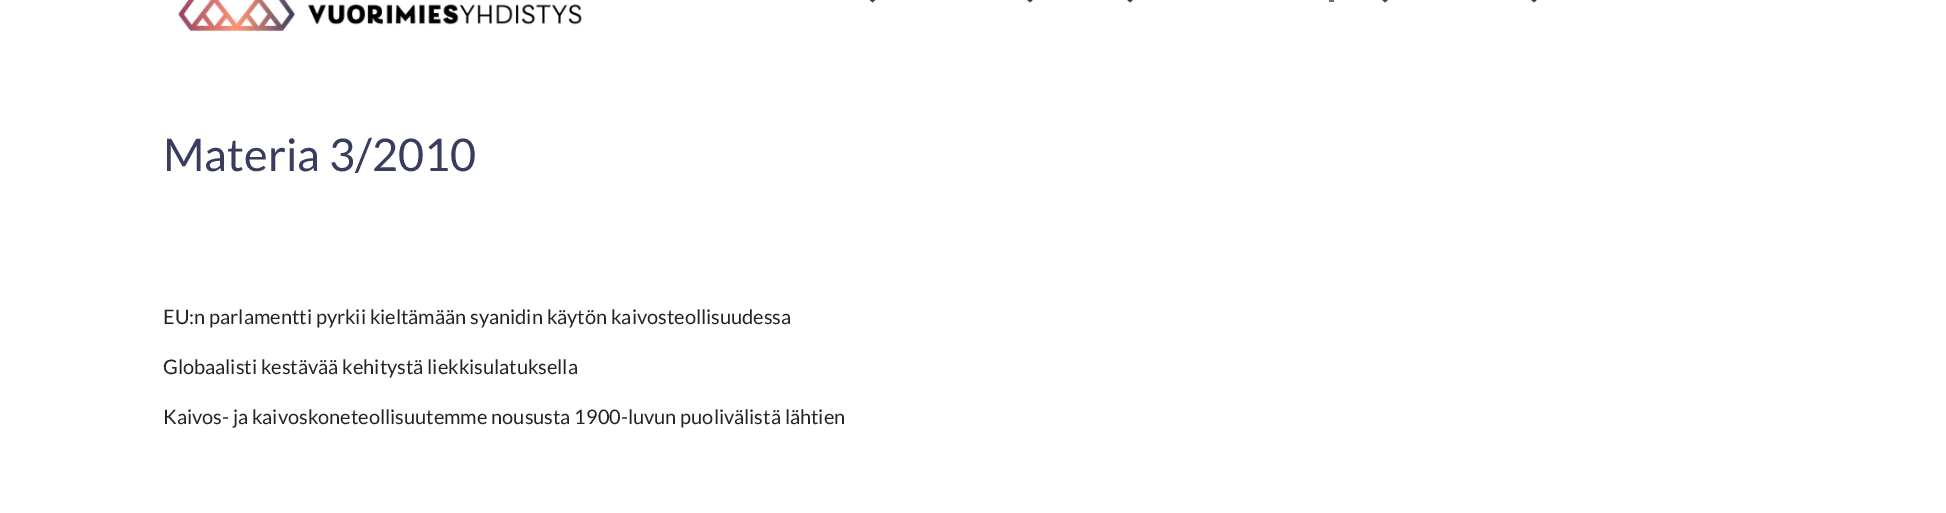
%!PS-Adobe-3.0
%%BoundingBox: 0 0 1946 513
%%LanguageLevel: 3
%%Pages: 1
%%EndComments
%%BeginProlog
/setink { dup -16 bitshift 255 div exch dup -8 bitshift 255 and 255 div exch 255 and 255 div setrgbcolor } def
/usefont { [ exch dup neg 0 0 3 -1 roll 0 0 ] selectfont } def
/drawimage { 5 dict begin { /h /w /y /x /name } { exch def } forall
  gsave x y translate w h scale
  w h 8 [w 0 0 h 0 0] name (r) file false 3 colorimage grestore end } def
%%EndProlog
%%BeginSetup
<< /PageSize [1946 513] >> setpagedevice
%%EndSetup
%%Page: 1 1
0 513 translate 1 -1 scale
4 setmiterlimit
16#FFFFFF setink
0 0 1946 513 rectfill
(img1.raw) 178 0 404 31 drawimage
16#383C5F setink
867.5 -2.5 moveto 877.5 -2.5 lineto 872.5 2.5 lineto closepath fill
1025 -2.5 moveto 1035 -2.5 lineto 1030 2.5 lineto closepath fill
1125 -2.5 moveto 1135 -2.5 lineto 1130 2.5 lineto closepath fill
/Lato-Regular 20 usefont
1328 7 moveto (-) show
1380 -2.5 moveto 1390 -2.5 lineto 1385 2.5 lineto closepath fill
1529 -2.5 moveto 1539 -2.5 lineto 1534 2.5 lineto closepath fill
/Lato-Regular 45 usefont
163 171 moveto (Materia 3/2010) show
/Lato-Regular 20 usefont
16#212529 setink
[
    [(EU:n parlamentti pyrkii kieltämään syanidin käytön kaivosteollisuudessa) 163 324]
    [(Globaalisti kestävää kehitystä liekkisulatuksella) 163 374]
    [(Kaivos- ja kaivoskoneteollisuutemme noususta 1900-luvun puolivälistä lähtien) 163 424]
] { aload pop moveto show } forall
showpage
%%EOF
